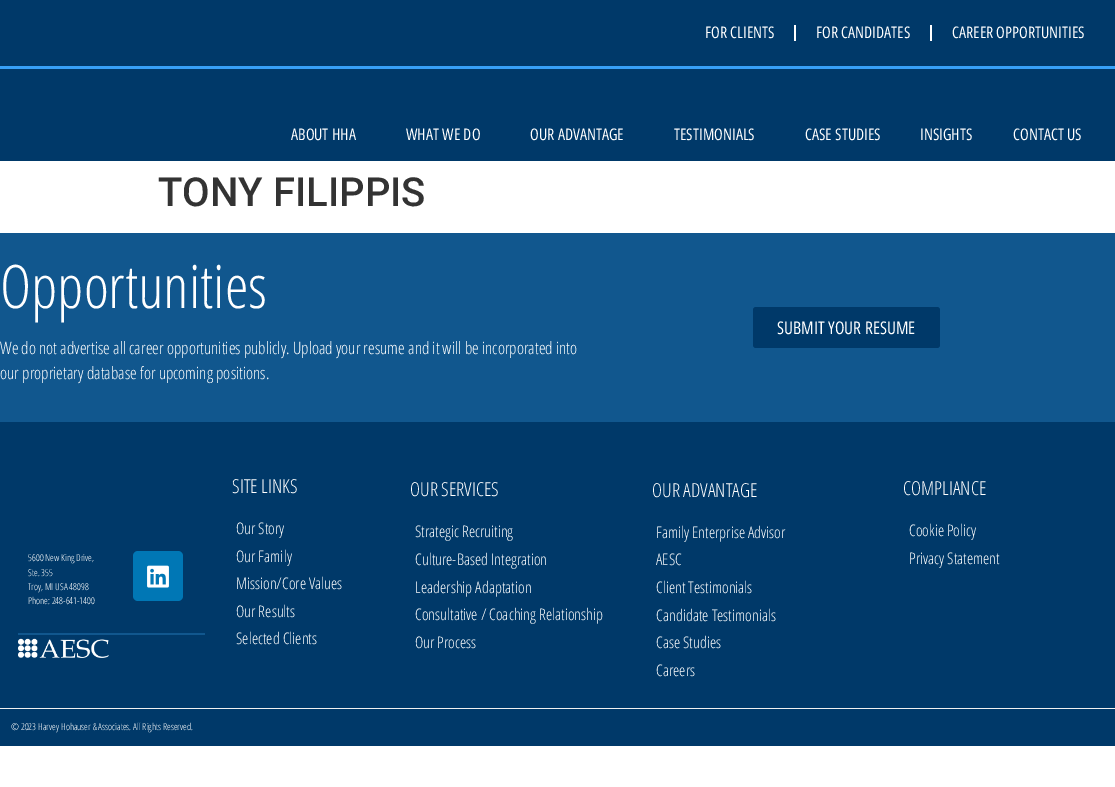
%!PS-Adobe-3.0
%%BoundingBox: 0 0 1115 787
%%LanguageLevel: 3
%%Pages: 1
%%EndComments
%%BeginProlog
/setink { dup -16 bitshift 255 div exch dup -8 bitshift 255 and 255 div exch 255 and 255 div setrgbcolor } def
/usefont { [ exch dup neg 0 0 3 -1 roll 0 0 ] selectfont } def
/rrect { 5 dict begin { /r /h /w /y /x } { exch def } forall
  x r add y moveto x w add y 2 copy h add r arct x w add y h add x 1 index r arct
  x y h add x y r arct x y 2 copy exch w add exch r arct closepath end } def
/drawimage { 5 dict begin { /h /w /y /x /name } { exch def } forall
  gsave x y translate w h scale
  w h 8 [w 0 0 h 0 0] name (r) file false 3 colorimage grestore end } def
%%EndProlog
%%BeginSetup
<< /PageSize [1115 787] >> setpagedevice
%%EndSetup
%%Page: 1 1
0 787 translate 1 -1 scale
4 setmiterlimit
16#FFFFFF setink
0 0 1115 787 rectfill
16#003969 setink
0 0 1115 66 rectfill
/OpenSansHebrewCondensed-Regular 16 usefont
16#FFFFFF setink
705 38 moveto (FOR CLIENTS) show
794 25 2 16 rectfill
816 38 moveto (FOR CANDIDATES) show
930 25 2 16 rectfill
952 38 moveto (CAREER OPPORTUNITIES) show
16#003969 setink
0 69 1115 92 rectfill
16#37A0F7 setink
0 66 1115 3 rectfill
16#FFFFFF setink
[
    [(ABOUT HHA) 291 140]
    [(WHAT WE DO) 406 140]
    [(OUR ADVANTAGE) 530 140]
    [(TESTIMONIALS) 674 140]
    [(CASE STUDIES) 805 140]
    [(INSIGHTS) 920 140]
    [(CONTACT US) 1013 140]
] { aload pop moveto show } forall
/Roboto-Medium 40 usefont
16#333333 setink
158 206 moveto (TONY FILIPPIS) show
16#11578E setink
0 233 1115 189 rectfill
/OpenSansHebrewCondensed-Light 60 usefont
16#FFFFFF setink
0 308 moveto (Opportunities) show
/OpenSansHebrewCondensed-Light 17 usefont
0 354 moveto (We do not advertise all career opportunities publicly. Upload your resume and it will be incorporated into) show
0 379 moveto (our proprietary database for upcoming positions.) show
16#003969 setink
753 307 187 41 3 rrect fill
/OpenSansHebrewCondensed-Regular 17.5 usefont
16#FFFFFF setink
777 334 moveto (SUBMIT YOUR RESUME) show
16#003969 setink
0 422 1115 286 rectfill
16#11578E setink
18 633 187 2 rectfill
/OpenSansHebrewCondensed-Light 9.6 usefont
16#FFFFFF setink
[
    [(5600 New King Drive,) 28 561]
    [(Ste. 355) 28 576]
    [(Troy, MI USA 48098) 28 590]
    [(Phone: 248-641-1400) 28 604]
] { aload pop moveto show } forall
16#0077B5 setink
133 551 50 50 5 rrect fill
(img1.raw) 147 565 22 23 drawimage
(img2.raw) 18 638 91 20 drawimage
/OpenSansHebrewCondensed-Light 19.25 usefont
16#FFFFFF setink
232 493 moveto (SITE LINKS) show
/OpenSansHebrewCondensed-Light 16 usefont
[
    [(Our Story) 236 534]
    [(Our Family) 236 562]
    [(Mission/Core Values) 236 589]
    [(Our Results) 236 617]
    [(Selected Clients) 236 644]
] { aload pop moveto show } forall
/OpenSansHebrewCondensed-Light 19.25 usefont
410 496 moveto (OUR SERVICES) show
/OpenSansHebrewCondensed-Light 16 usefont
[
    [(Strategic Recruiting) 415 537]
    [(Culture-Based Integration) 415 565]
    [(Leadership Adaptation) 415 593]
    [(Consultative / Coaching Relationship) 415 620]
    [(Our Process) 415 648]
] { aload pop moveto show } forall
/OpenSansHebrewCondensed-Light 19.25 usefont
652 497 moveto (OUR ADVANTAGE) show
/OpenSansHebrewCondensed-Light 16 usefont
[
    [(Family Enterprise Advisor) 656 538]
    [(AESC) 656 565]
    [(Client Testimonials) 656 593]
    [(Candidate Testimonials) 656 621]
    [(Case Studies) 656 648]
    [(Careers) 656 676]
] { aload pop moveto show } forall
/OpenSansHebrewCondensed-Light 19.25 usefont
903 495 moveto (COMPLIANCE) show
/OpenSansHebrewCondensed-Light 16 usefont
909 536 moveto (Cookie Policy) show
909 564 moveto (Privacy Statement) show
16#003969 setink
0 709 1115 37 rectfill
16#F0F0F0 setink
0 708 1115 1 rectfill
/OpenSansHebrewCondensed-Light 9.6 usefont
16#FFFFFF setink
11 730 moveto (© 2023 Harvey Hohauser & Associates. All Rights Reserved.) show
showpage
%%EOF
